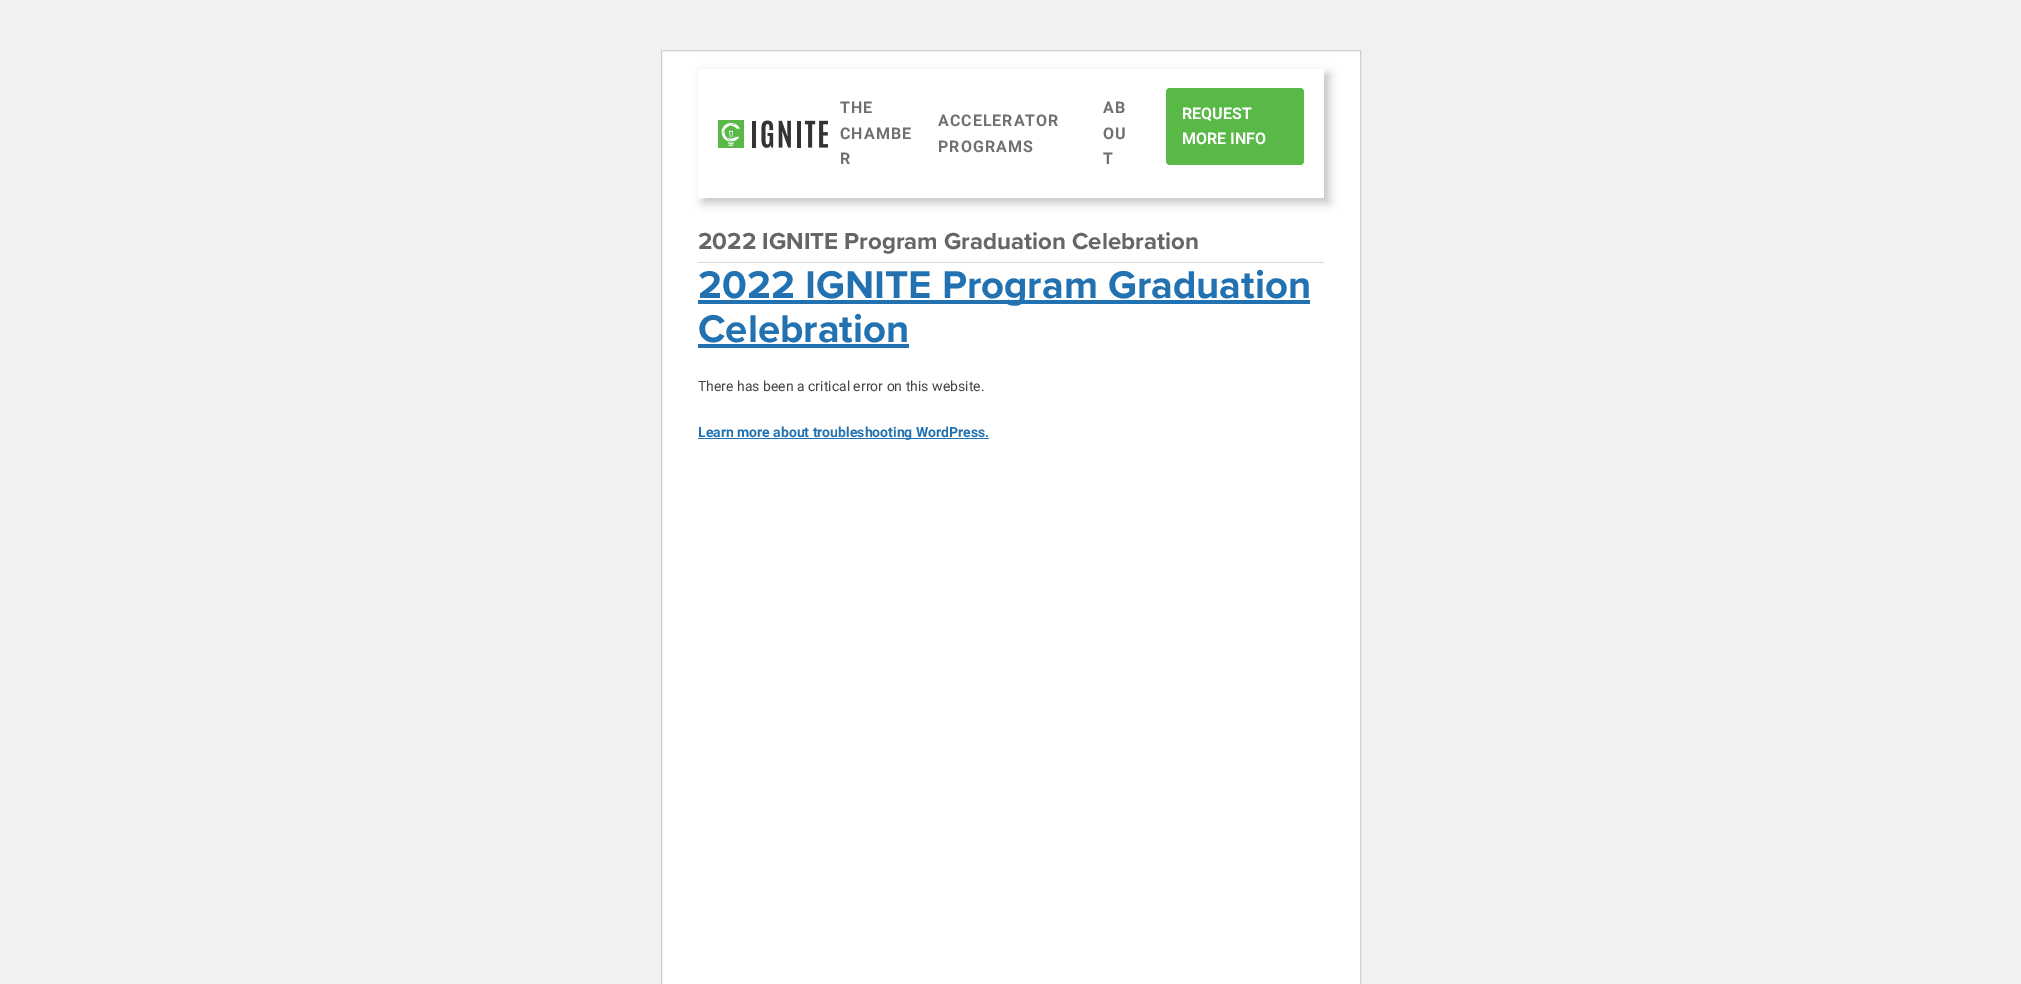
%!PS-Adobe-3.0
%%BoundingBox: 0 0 2021 984
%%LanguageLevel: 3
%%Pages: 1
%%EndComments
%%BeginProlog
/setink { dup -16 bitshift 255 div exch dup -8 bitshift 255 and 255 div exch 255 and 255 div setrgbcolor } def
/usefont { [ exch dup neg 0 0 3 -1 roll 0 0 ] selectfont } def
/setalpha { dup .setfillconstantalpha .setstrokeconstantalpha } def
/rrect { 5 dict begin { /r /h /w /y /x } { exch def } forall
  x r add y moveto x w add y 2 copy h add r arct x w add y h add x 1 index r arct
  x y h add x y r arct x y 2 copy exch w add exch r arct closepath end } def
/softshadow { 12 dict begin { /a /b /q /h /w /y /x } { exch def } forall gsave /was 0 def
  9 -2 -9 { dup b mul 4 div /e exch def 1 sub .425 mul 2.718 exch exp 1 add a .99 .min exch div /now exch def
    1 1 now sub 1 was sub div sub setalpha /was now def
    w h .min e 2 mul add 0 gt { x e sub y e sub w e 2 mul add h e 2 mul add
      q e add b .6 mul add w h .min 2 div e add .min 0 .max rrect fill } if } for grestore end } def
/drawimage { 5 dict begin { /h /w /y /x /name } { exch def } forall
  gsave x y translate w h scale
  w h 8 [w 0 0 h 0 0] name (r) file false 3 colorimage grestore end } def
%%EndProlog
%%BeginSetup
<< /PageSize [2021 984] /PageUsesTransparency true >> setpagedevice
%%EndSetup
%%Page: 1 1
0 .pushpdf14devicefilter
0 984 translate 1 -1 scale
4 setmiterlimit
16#F1F1F1 setink
0 0 2021 984 rectfill
16#FFFFFF setink
661.5 50.5 moveto 1360.5 50.5 lineto 1360.5 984.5 lineto 661.5 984.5 lineto closepath gsave fill grestore
16#CCD0D4 setink
stroke
gsave
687 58 moveto 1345 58 lineto 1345 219 lineto 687 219 lineto closepath 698 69 moveto 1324 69 lineto 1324 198 lineto 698 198 lineto closepath eoclip newpath
16#333333 setink
703 74 626 129 0 5 0.3 softshadow
grestore
(img1.raw) 718 120 110 28 drawimage
/Roboto-Bold 16 usefont
16#707070 setink
840 113 moveto 1 0 (THE) ashow
840 139 moveto 1 0 (CHAMBE) ashow
840 164 moveto 1 0 (R) ashow
938 126 moveto 1 0 (ACCELERATOR) ashow
938 152 moveto 1 0 (PROGRAMS) ashow
1103 113 moveto 1 0 (AB) ashow
1103 139 moveto 1 0 (OU) ashow
1103 164 moveto 1 0 (T) ashow
16#58B947 setink
1166 88 138 77 4 rrect fill
16#FFFFFF setink
1182 119 moveto (REQUEST) show
1182 144 moveto (MORE INFO) show
16#DADADA setink
698 262 626 1 rectfill
/ProximaNova-Bold 24 usefont
16#666666 setink
698 249 moveto (2022 IGNITE Program Graduation Celebration) show
16#2271B1 setink
698 300 612 4 rectfill
/ProximaNova-Bold 40 usefont
698 298 moveto (2022 IGNITE Program Graduation) show
698 342 moveto (Celebration) show
698 344 211 4 rectfill
/Roboto-Regular 14 usefont
16#444444 setink
698 391 moveto (There has been a critical error on this website.) show
16#2271B1 setink
698 438 291 1 rectfill
/Roboto-Bold 14 usefont
698 437 moveto (Learn more about troubleshooting WordPress.) show
.poppdf14devicefilter showpage
%%EOF
